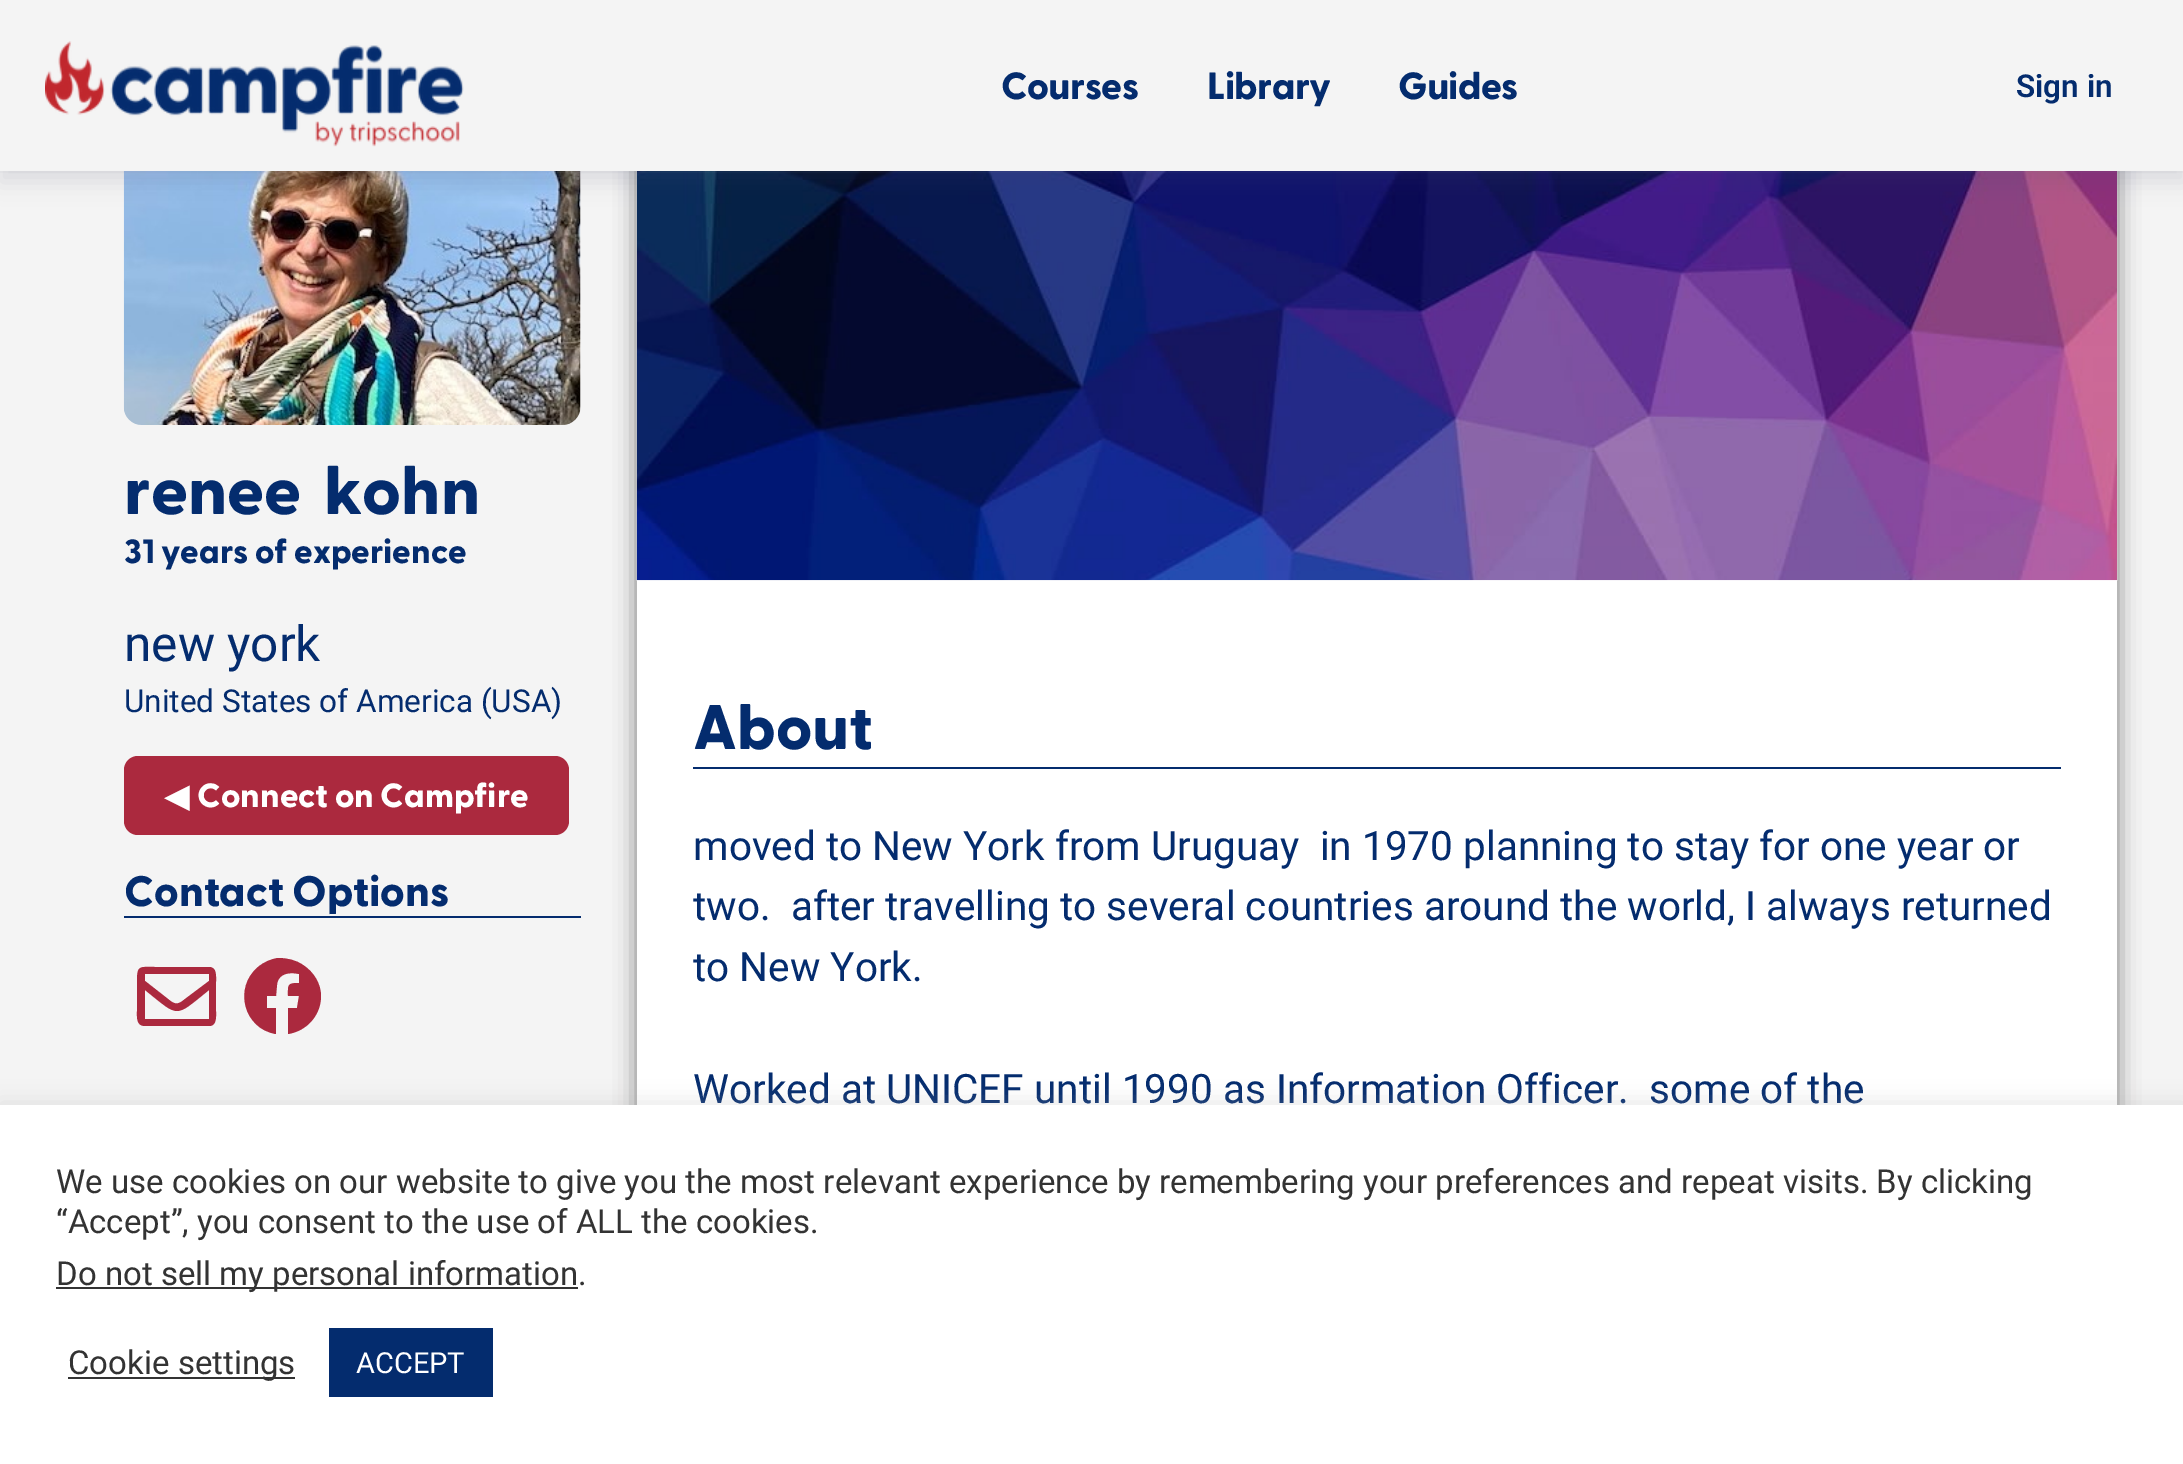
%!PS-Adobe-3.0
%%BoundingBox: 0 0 2183 1464
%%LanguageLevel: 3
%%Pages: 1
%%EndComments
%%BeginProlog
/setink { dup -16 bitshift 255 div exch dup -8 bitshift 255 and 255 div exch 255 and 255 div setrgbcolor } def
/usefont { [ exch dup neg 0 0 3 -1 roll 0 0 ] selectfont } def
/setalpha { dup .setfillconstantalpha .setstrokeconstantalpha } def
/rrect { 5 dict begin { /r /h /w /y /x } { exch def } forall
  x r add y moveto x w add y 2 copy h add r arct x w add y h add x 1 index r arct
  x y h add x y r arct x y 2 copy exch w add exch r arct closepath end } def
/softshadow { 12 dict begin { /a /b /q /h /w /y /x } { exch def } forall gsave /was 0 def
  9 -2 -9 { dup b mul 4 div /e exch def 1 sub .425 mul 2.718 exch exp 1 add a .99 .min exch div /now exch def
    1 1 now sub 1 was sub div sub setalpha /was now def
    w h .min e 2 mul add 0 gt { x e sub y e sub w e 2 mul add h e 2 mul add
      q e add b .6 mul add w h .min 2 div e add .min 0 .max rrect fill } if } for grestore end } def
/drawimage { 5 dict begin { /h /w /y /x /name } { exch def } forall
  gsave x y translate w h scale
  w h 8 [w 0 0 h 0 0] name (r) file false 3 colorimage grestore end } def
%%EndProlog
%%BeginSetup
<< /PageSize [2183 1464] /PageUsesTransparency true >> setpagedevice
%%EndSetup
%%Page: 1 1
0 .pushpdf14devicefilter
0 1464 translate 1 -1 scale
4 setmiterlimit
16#F4F4F4 setink
0 0 2183 1464 rectfill
(img2.raw) 123 171 458 254 drawimage
16#000000 setink
637 18 1480 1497 18 11 0.5 softshadow
16#FFFFFF setink
637 580 1480 525 rectfill
(img3.raw) 636 171 1482 410 drawimage
16#41476C setink
0 11 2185 171 0 11 0.15 softshadow
0.05 setalpha
16#8B8D9D setink
0 171 moveto 0 173 lineto 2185 173 lineto 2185 2 lineto 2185 171 lineto closepath fill
1 setalpha
16#F4F4F4 setink
0 0 2183 171 rectfill
(img1.raw) 45 41 419 106 drawimage
/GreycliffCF-ExtraBold 38 usefont
16#042C6E setink
1001 99 moveto -0.5 0 (Courses) ashow
1207 99 moveto -0.5 0 (Library) ashow
1398 99 moveto -0.5 0 (Guides) ashow
/Roboto-SemiBold 31.5 usefont
2016 97 moveto (Sign in) show
/GreycliffCF-ExtraBold 67.5 usefont
124 514 moveto (renee) show
324 514 moveto (kohn) show
/GreycliffCF-ExtraBold 33.75 usefont
124 563 moveto (31 years of experience) show
/Roboto-Regular 49.5 usefont
124 661 moveto (new york) show
/Roboto-Regular 31.5 usefont
124 712 moveto (United States of America \(USA\)) show
16#AB293E setink
124 756 445 79 14 rrect fill
/DejaVuSans-Regular 33.75 usefont
16#FFFFFF setink
164 807 moveto (◀) show
/GreycliffCF-ExtraBold 33.75 usefont
197 807 moveto (Connect on Campfire) show
16#042C6E setink
124 916 457 2 rectfill
/GreycliffCF-ExtraBold 42.75 usefont
124 906 moveto (Contact Options) show
16#AB293E setink
209 967 moveto 217 967 216 976 216 982 curveto 216 1011 lineto 216 1016 217 1025 210 1026 curveto 145 1026 lineto 136 1026 137 1017 137 1011 curveto 137 982 lineto 137 965 139 967 155 967 curveto closepath 209 974 moveto 145 974 lineto 145 981 lineto 168 999 lineto 175 1005 178 1005 185 999 curveto 209 981 lineto closepath 145 1019 moveto 209 1019 lineto 209 990 lineto 174 1018 180 1018 145 990 curveto closepath fill
321 996 moveto 321 1015 307 1031 288 1034 curveto 288 1008 lineto 297 1008 lineto 299 996 lineto 288 996 lineto 288 985 287 983 299 983 curveto 299 974 lineto 290 972 278 973 277 985 curveto 276 996 lineto 267 996 lineto 267 1008 lineto 276 1008 lineto 276 1034 lineto 244 1029 233 988 258 967 curveto 264 962 271 959 278 958 curveto 287 958 296 960 303 965 curveto 314 972 321 984 321 996 curveto closepath fill
16#042C6E setink
693 767 1368 2 rectfill
/GreycliffCF-ExtraBold 63 usefont
693 749 moveto (About) show
/Roboto-Regular 40.5 usefont
[
    [(moved to New York from Uruguay  in 1970 planning to stay for one year or) 693 860]
    [(two.  after travelling to several countries around the world, I always returned) 693 920]
    [(to New York.) 693 981]
    [(Worked at UNICEF until 1990 as Information Officer.  some of the) 693 1103]
] { aload pop moveto show } forall
16#ACABAB setink
0 1103 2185 360 0 11 0.3 softshadow
16#FFFFFF setink
0 1105 2183 359 rectfill
/Roboto-Regular 33 usefont
16#333333 setink
56 1193 moveto (We use cookies on our website to give you the most relevant experience by remembering your preferences and repeat visits. By clicking) show
56 1233 moveto (“Accept”, you consent to the use of ALL the cookies.) show
56 1287 522 2 rectfill
56 1285 moveto (Do not sell my personal information) show
578 1285 moveto (.) show
68 1377 227 2 rectfill
68 1374 moveto (Cookie settings) show
16#042C6E setink
329 1328 164 69 rectfill
/Roboto-Regular 29 usefont
16#FFFFFF setink
356 1373 moveto (ACCEPT) show
.poppdf14devicefilter showpage
%%EOF
